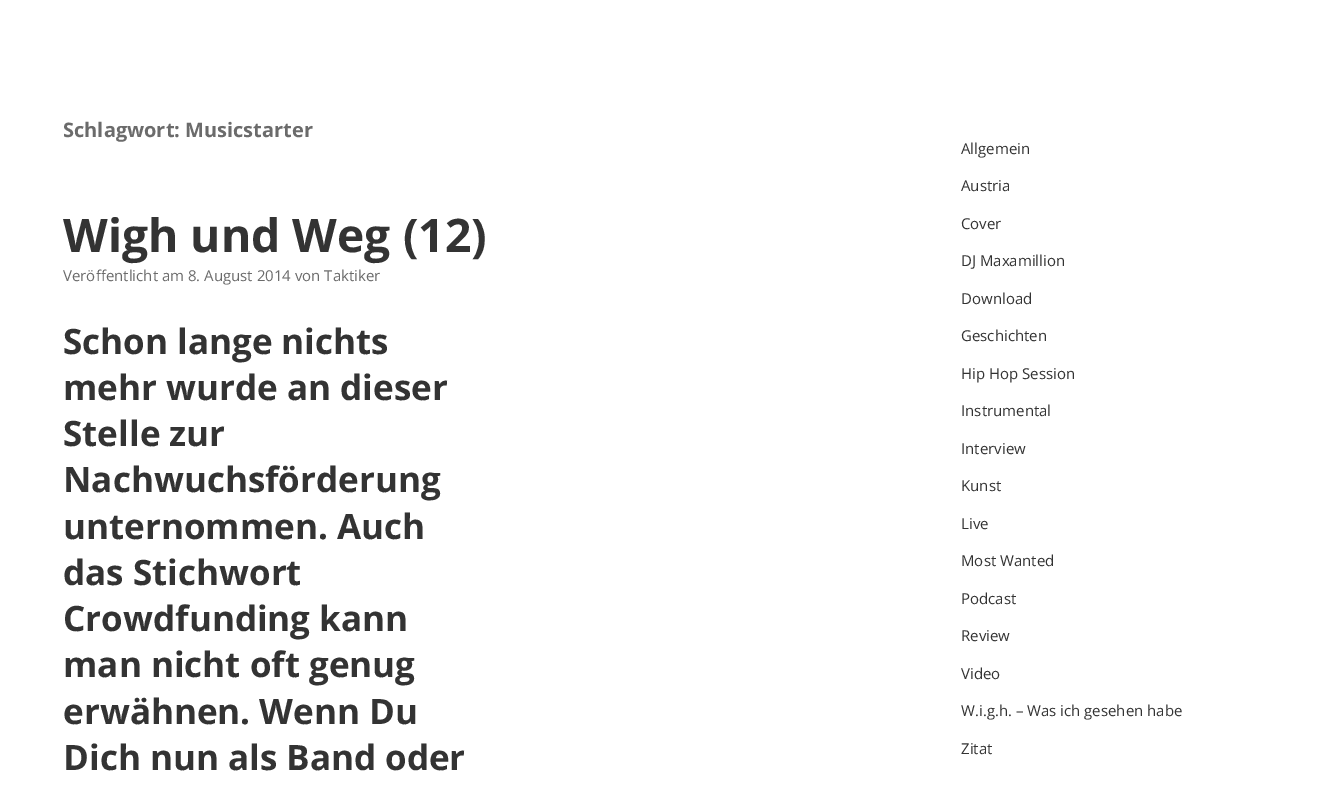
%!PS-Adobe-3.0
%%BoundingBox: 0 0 1337 794
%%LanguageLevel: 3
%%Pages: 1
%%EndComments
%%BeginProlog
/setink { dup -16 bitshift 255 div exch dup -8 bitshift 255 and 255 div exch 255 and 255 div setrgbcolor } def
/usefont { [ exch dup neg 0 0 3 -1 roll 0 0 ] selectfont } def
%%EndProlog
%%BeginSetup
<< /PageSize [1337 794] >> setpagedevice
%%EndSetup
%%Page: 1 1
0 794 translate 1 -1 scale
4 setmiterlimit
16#FFFFFF setink
0 0 1337 794 rectfill
/OpenSans-Bold 20 usefont
16#6B6B6B setink
63 137 moveto (Schlagwort: Musicstarter) show
/OpenSans-Bold 46.25 usefont
16#333333 setink
63 252 moveto (Wigh und Weg \(12\)) show
/OpenSans-Regular 15 usefont
16#6B6B6B setink
63 281 moveto (Veröffentlicht am 8. August 2014 von Taktiker) show
/OpenSans-Bold 35 usefont
16#333333 setink
[
    [(Schon lange nichts) 63 354]
    [(mehr wurde an dieser) 63 400]
    [(Stelle zur) 63 446]
    [(Nachwuchsförderung) 63 492]
    [(unternommen. Auch) 63 539]
    [(das Stichwort) 63 585]
    [(Crowdfunding kann) 63 631]
    [(man nicht oft genug) 63 677]
    [(erwähnen. Wenn Du) 63 724]
    [(Dich nun als Band oder) 63 770]
] { aload pop moveto show } forall
/OpenSans-Regular 15 usefont
[
    [(Allgemein) 961 154]
    [(Austria) 961 191]
    [(Cover) 961 229]
    [(DJ Maxamillion) 961 266]
    [(Download) 961 304]
    [(Geschichten) 961 341]
    [(Hip Hop Session) 961 379]
    [(Instrumental) 961 416]
    [(Interview) 961 454]
    [(Kunst) 961 491]
    [(Live) 961 529]
    [(Most Wanted) 961 566]
    [(Podcast) 961 604]
    [(Review) 961 641]
    [(Video) 961 679]
    [(W.i.g.h. – Was ich gesehen habe) 961 716]
    [(Zitat) 961 754]
] { aload pop moveto show } forall
showpage
%%EOF
